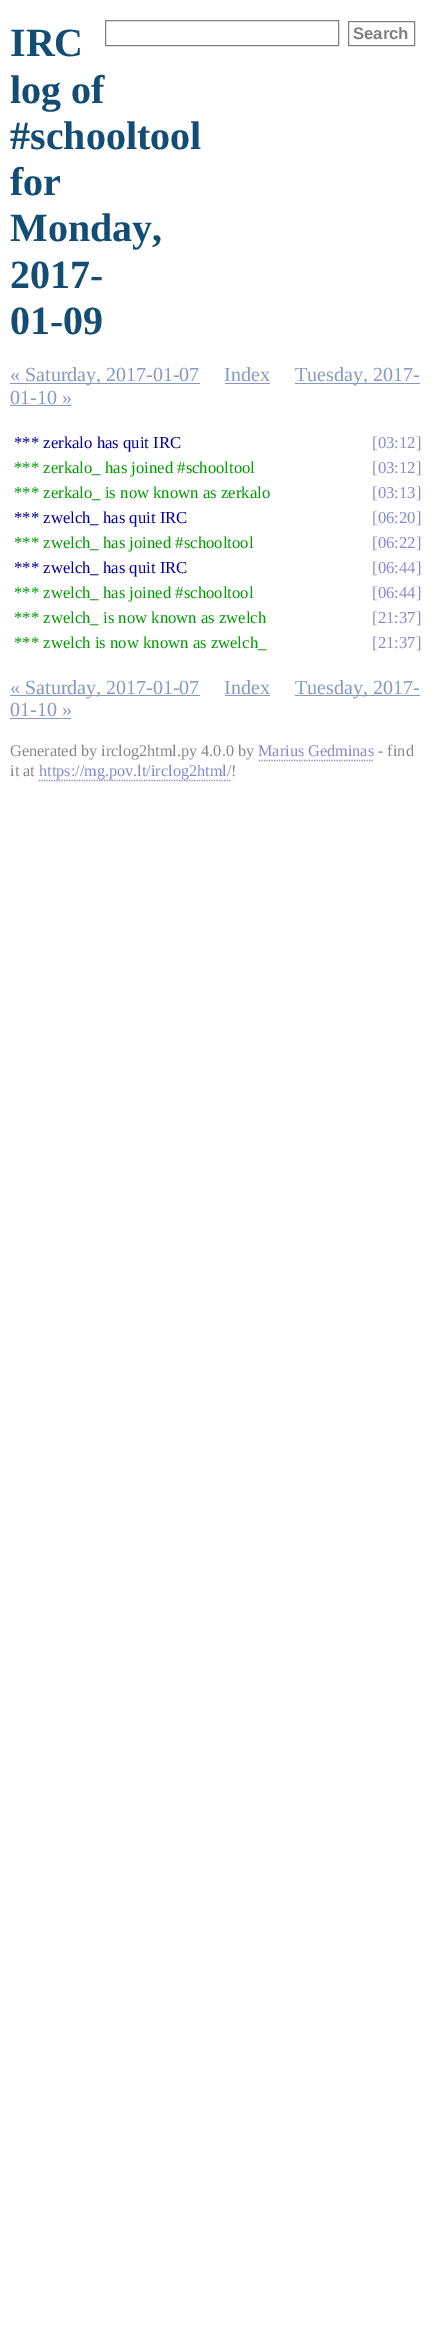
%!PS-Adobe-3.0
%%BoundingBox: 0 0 434 2346
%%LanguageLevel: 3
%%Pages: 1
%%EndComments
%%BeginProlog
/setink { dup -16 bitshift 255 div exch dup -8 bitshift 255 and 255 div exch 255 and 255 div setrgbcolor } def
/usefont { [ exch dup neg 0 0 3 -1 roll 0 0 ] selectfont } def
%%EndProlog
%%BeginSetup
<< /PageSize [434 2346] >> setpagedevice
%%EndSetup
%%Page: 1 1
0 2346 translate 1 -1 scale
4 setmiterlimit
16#FFFFFF setink
0 0 434 2346 rectfill
/LiberationSerif-Bold 40 usefont
16#134D73 setink
[
    [(IRC) 10 56]
    [(log of) 10 103]
    [(#schooltool) 10 149]
    [(for) 10 195]
    [(Monday,) 10 241]
    [(2017-) 10 288]
    [(01-09) 10 334]
] { aload pop moveto show } forall
16#808080 setink
105.5 20.5 233 25 rectstroke
348.5 21.5 66 24 rectstroke
/LiberationSans-Bold 16.7 usefont
353 39 moveto (Search) show
16#869ABF setink
10 383 190 1 rectfill
/LiberationSerif-Regular 20 usefont
10 381 moveto (« Saturday, 2017-01-07) show
224 381 moveto (Index) show
225 383 45 1 rectfill
295 383 125 1 rectfill
295 381 moveto (Tuesday, 2017-) show
10 404 moveto (01-10 ») show
10 405 61 1 rectfill
/LiberationSerif-Regular 16.7 usefont
16#000099 setink
14 448 moveto (*** zerkalo has quit IRC) show
16#8888CC setink
372 448 moveto ([03:12]) show
16#009900 setink
14 473 moveto (*** zerkalo_ has joined #schooltool) show
16#8888CC setink
372 473 moveto ([03:12]) show
16#009900 setink
14 498 moveto (*** zerkalo_ is now known as zerkalo) show
16#8888CC setink
372 498 moveto ([03:13]) show
16#000099 setink
14 523 moveto (*** zwelch_ has quit IRC) show
16#8888CC setink
372 523 moveto ([06:20]) show
16#009900 setink
14 548 moveto (*** zwelch_ has joined #schooltool) show
16#8888CC setink
372 548 moveto ([06:22]) show
16#000099 setink
14 573 moveto (*** zwelch_ has quit IRC) show
16#8888CC setink
372 573 moveto ([06:44]) show
16#009900 setink
14 598 moveto (*** zwelch_ has joined #schooltool) show
16#8888CC setink
372 598 moveto ([06:44]) show
16#009900 setink
14 623 moveto (*** zwelch_ is now known as zwelch) show
16#8888CC setink
372 623 moveto ([21:37]) show
16#009900 setink
14 648 moveto (*** zwelch is now known as zwelch_) show
16#8888CC setink
372 648 moveto ([21:37]) show
16#869ABF setink
10 695 190 1 rectfill
/LiberationSerif-Regular 20 usefont
10 694 moveto (« Saturday, 2017-01-07) show
224 694 moveto (Index) show
225 695 45 1 rectfill
295 695 125 1 rectfill
295 694 moveto (Tuesday, 2017-) show
10 716 moveto (01-10 ») show
10 718 61 1 rectfill
/LiberationSerif-Regular 16.25 usefont
16#888888 setink
10 756 moveto (Generated by irclog2html.py 4.0.0 by) show
16#8888CC setink
258 756 moveto (Marius Gedminas) show
1.2 setlinewidth
[1.25 1.25] 0 setdash
259 760.5 moveto 374 760.5 lineto stroke
16#888888 setink
378 756 moveto (- find) show
10 776 moveto (it at) show
16#8888CC setink
39 780.5 moveto 231 780.5 lineto stroke
39 776 moveto (https://mg.pov.lt/irclog2html/) show
16#888888 setink
231 776 moveto (!) show
showpage
%%EOF
